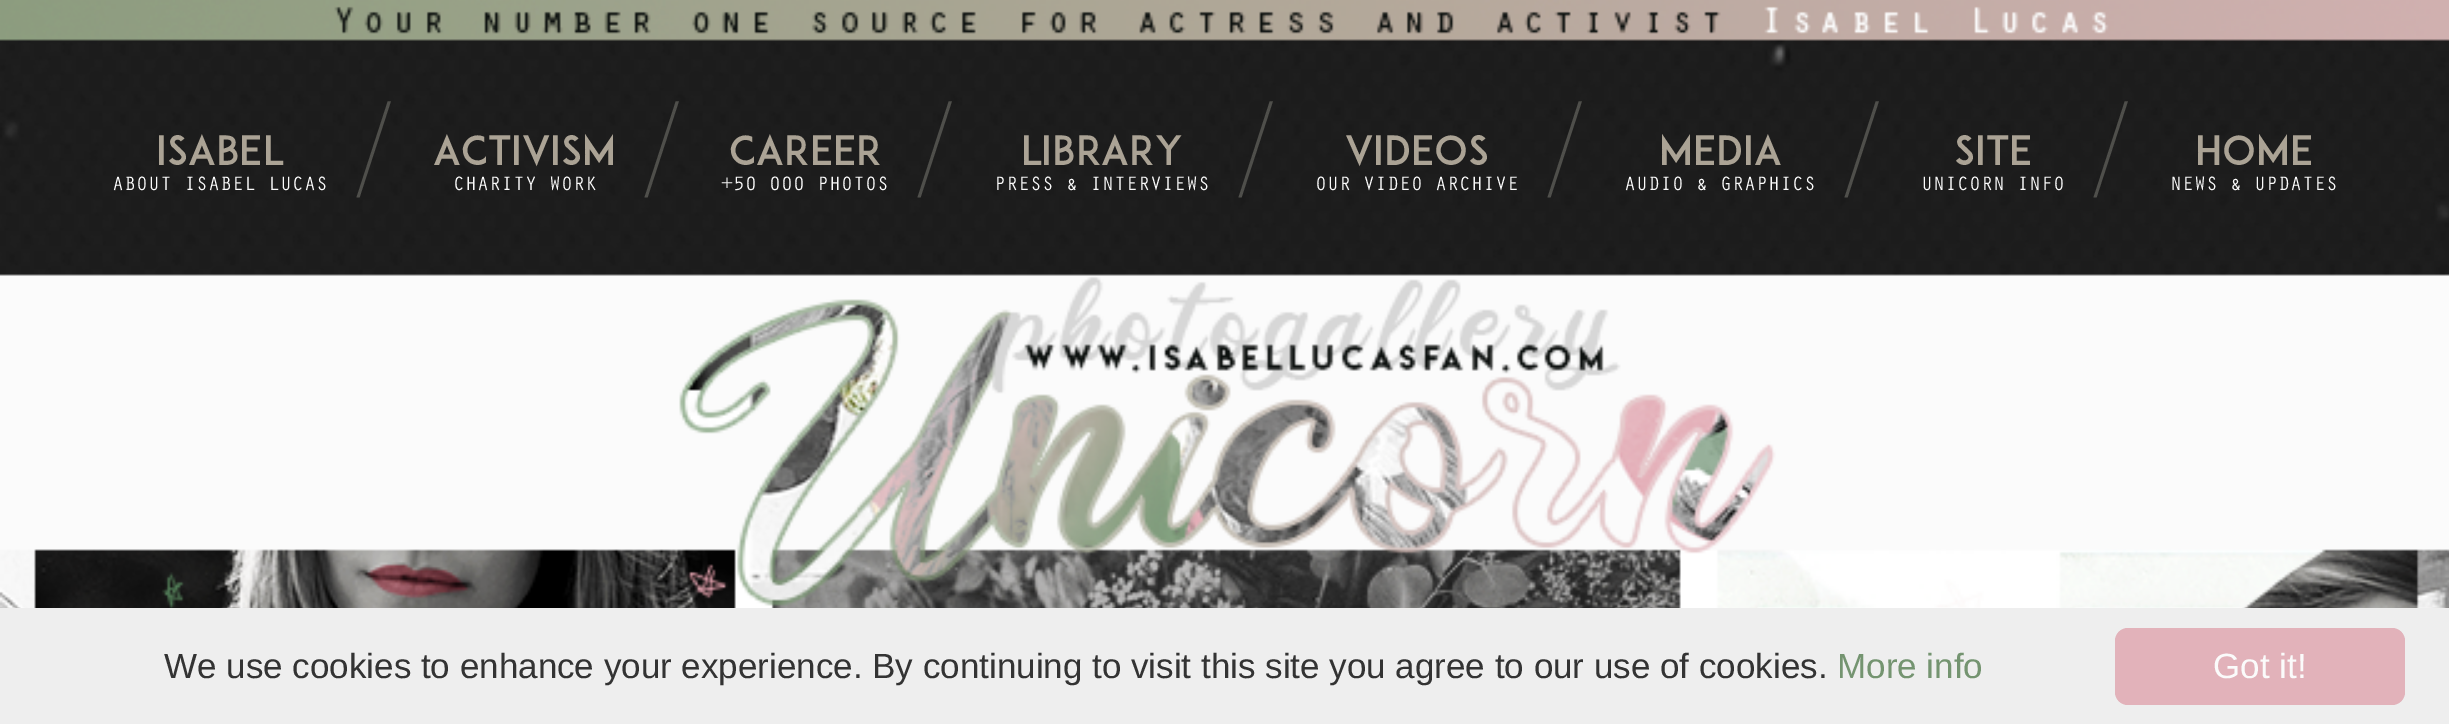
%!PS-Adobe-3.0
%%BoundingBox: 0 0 2449 724
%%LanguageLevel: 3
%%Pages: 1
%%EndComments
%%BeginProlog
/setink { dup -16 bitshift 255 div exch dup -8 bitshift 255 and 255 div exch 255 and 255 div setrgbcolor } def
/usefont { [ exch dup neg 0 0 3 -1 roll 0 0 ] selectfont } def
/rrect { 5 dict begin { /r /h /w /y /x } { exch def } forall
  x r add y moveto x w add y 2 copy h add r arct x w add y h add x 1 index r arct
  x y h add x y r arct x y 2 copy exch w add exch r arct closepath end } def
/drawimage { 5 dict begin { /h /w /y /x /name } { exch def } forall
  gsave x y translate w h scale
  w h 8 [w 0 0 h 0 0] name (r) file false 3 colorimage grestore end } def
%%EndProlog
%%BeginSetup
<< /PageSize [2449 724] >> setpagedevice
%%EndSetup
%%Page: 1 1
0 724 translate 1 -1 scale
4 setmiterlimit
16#FFFFFF setink
0 0 2449 724 rectfill
(img1.raw) 0 0 2449 608 drawimage
/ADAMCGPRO-Regular 40 usefont
16#ABA395 setink
156 165 moveto (ISABEL) show
/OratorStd-Regular 20 usefont
16#FBFBFB setink
112 190 moveto (ABOUT ISABEL LUCAS) show
/RobotoCondensed-Thin 125 usefont
16#4F4F4B setink
353 190 moveto (/) show
/ADAMCGPRO-Regular 40 usefont
16#ABA395 setink
433 165 moveto (ACTIVISM) show
/OratorStd-Regular 20 usefont
16#FBFBFB setink
453 190 moveto (CHARITY WORK) show
/RobotoCondensed-Thin 125 usefont
16#4F4F4B setink
641 190 moveto (/) show
/ADAMCGPRO-Regular 40 usefont
16#ABA395 setink
729 165 moveto (CAREER) show
/OratorStd-Regular 20 usefont
16#FBFBFB setink
721 190 moveto (+50 000 PHOTOS) show
/RobotoCondensed-Thin 125 usefont
16#4F4F4B setink
914 190 moveto (/) show
/ADAMCGPRO-Regular 40 usefont
16#ABA395 setink
1021 165 moveto (LIBRARY) show
/OratorStd-Regular 20 usefont
16#FBFBFB setink
994 190 moveto (PRESS & INTERVIEWS) show
/RobotoCondensed-Thin 125 usefont
16#4F4F4B setink
1235 190 moveto (/) show
/ADAMCGPRO-Regular 40 usefont
16#ABA395 setink
1345 165 moveto (VIDEOS) show
/OratorStd-Regular 20 usefont
16#FBFBFB setink
1315 190 moveto (OUR VIDEO ARCHIVE) show
/RobotoCondensed-Thin 125 usefont
16#4F4F4B setink
1544 190 moveto (/) show
/ADAMCGPRO-Regular 40 usefont
16#ABA395 setink
1659 165 moveto (MEDIA) show
/OratorStd-Regular 20 usefont
16#FBFBFB setink
1624 190 moveto (AUDIO & GRAPHICS) show
/RobotoCondensed-Thin 125 usefont
16#4F4F4B setink
1841 190 moveto (/) show
/ADAMCGPRO-Regular 40 usefont
16#ABA395 setink
1954 165 moveto (SITE) show
/OratorStd-Regular 20 usefont
16#FBFBFB setink
1921 190 moveto (UNICORN INFO) show
/RobotoCondensed-Thin 125 usefont
16#4F4F4B setink
2090 190 moveto (/) show
/ADAMCGPRO-Regular 40 usefont
16#ABA395 setink
2195 165 moveto (HOME) show
/OratorStd-Regular 20 usefont
16#FBFBFB setink
2170 190 moveto (NEWS & UPDATES) show
16#EEEEEE setink
0 608 2449 116 rectfill
/LiberationSans-Regular 35 usefont
16#333333 setink
164 678 moveto (We use cookies to enhance your experience. By continuing to visit this site you agree to our use of cookies.) show
16#749470 setink
1837 678 moveto (More info) show
16#E2B2BA setink
2115 628 290 77 13 rrect fill
16#FBFBFB setink
2213 678 moveto (Got it!) show
showpage
%%EOF
